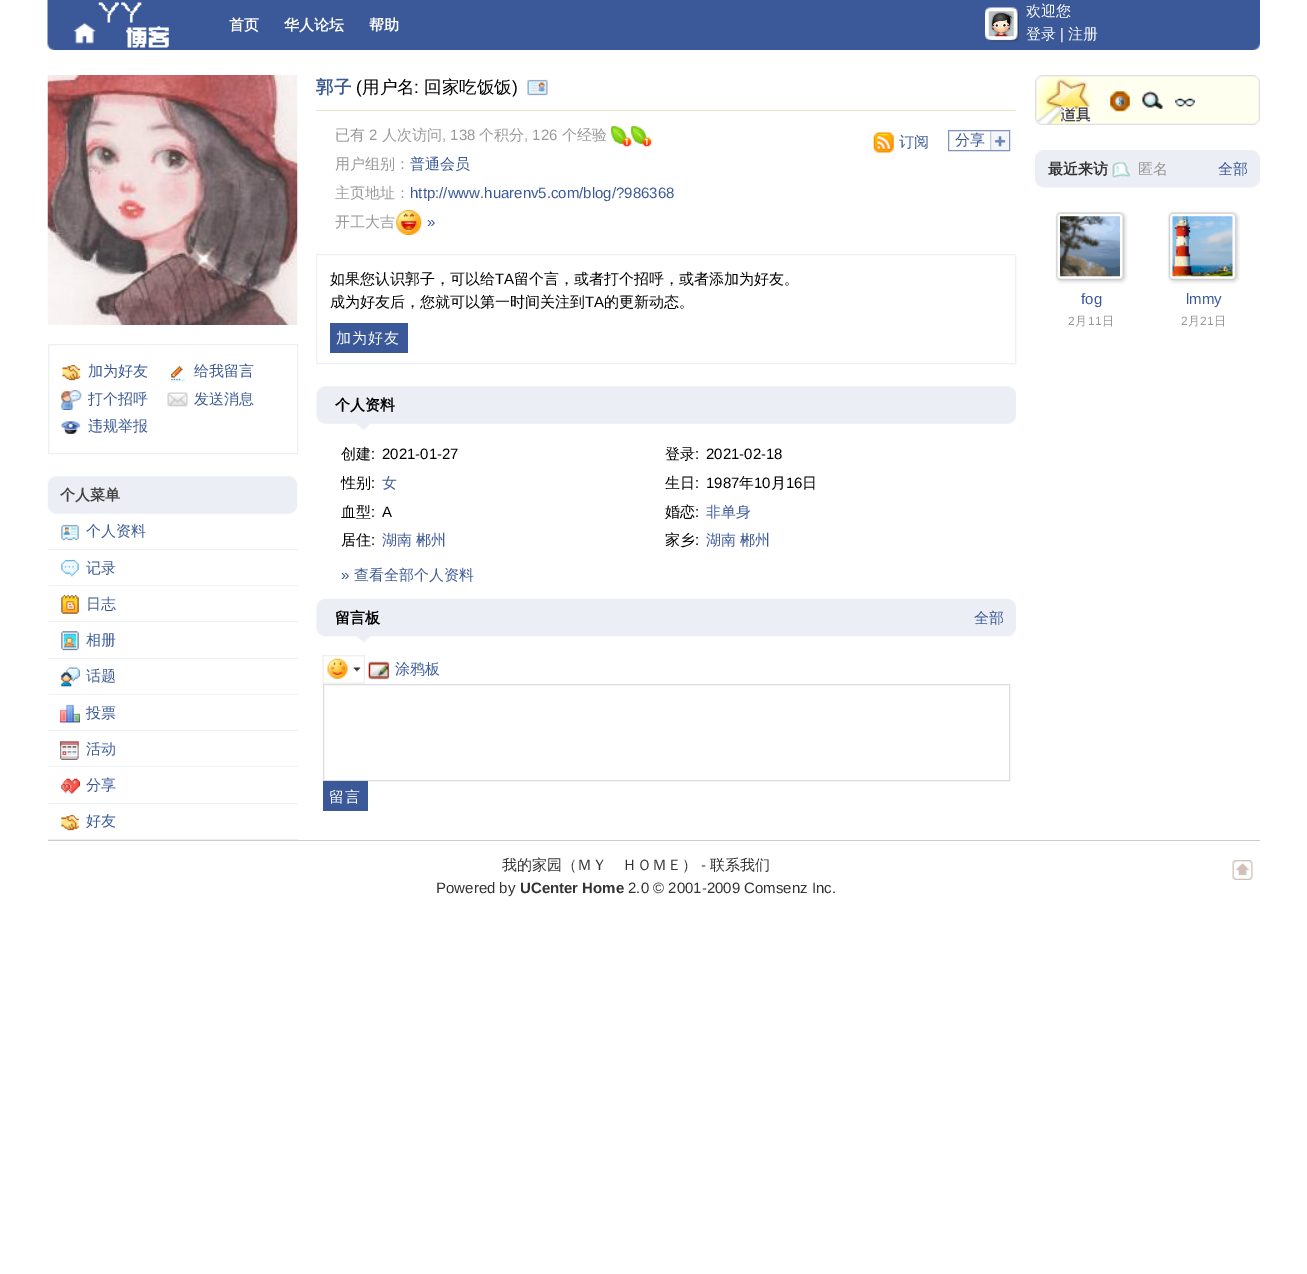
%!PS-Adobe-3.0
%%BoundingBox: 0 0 1307 1274
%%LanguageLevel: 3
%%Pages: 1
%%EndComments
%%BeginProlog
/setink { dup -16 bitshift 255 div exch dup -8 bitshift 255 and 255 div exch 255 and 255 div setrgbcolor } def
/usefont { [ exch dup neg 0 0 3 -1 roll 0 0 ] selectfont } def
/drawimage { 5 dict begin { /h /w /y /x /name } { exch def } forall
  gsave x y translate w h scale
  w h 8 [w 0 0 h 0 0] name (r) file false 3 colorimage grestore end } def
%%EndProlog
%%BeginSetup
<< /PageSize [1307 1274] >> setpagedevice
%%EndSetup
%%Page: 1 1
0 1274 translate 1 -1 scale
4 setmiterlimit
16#FFFFFF setink
0 0 1307 1274 rectfill
(img1.raw) 47 0 1213 50 drawimage
(img2.raw) 73 2 96 46 drawimage
/WenQuanYiZenHei-Bold 15 usefont
[
    [(首页) 229 30]
    [(华人论坛) 284 30]
    [(帮助) 369 30]
] { aload pop moveto show } forall
(img3.raw) 985 7 34 35 drawimage
(img4.raw) 988 11 26 26 drawimage
/WenQuanYiZenHei-Medium 15 usefont
1026 16 moveto (欢迎您) show
1026 39 moveto (登录) show
/LiberationSans-Regular 15 usefont
1060 39 moveto (|) show
/WenQuanYiZenHei-Medium 15 usefont
1068 39 moveto (注册) show
16#EBE6C9 setink
316 110 700 1 rectfill
/WenQuanYiZenHei-Bold 17.5 usefont
16#3B5998 setink
316 93 moveto (郭子) show
/LiberationSans-Regular 17.5 usefont
16#000000 setink
356 93 moveto (\() show
/WenQuanYiZenHei-Medium 17.5 usefont
362 93 moveto (用户名) show
/LiberationSans-Regular 17.5 usefont
414 93 moveto (:) show
/WenQuanYiZenHei-Medium 17.5 usefont
424 93 moveto (回家吃饭饭) show
/LiberationSans-Regular 17.5 usefont
512 93 moveto (\)) show
(img5.raw) 527 79 21 17 drawimage
/WenQuanYiZenHei-Medium 15 usefont
16#999999 setink
335 140 moveto (已有) show
/LiberationSans-Regular 15 usefont
369 140 moveto (2) show
/WenQuanYiZenHei-Medium 15 usefont
382 140 moveto (人次访问) show
/LiberationSans-Regular 15 usefont
442 140 moveto (, 138) show
/WenQuanYiZenHei-Medium 15 usefont
479 140 moveto (个积分) show
/LiberationSans-Regular 15 usefont
524 140 moveto (, 126) show
/WenQuanYiZenHei-Medium 15 usefont
562 140 moveto (个经验) show
(img6.raw) 611 126 21 21 drawimage
(img7.raw) 631 126 21 21 drawimage
335 169 moveto (用户组别：) show
16#3B5998 setink
410 169 moveto (普通会员) show
16#999999 setink
335 198 moveto (主页地址：) show
/LiberationSans-Regular 15 usefont
16#3B5998 setink
410 198 moveto (http://www.huarenv5.com/blog/?986368) show
/WenQuanYiZenHei-Medium 15 usefont
16#999999 setink
335 227 moveto (开工大吉) show
(img8.raw) 396 210 26 25 drawimage
/LiberationSans-Regular 15 usefont
16#3B5998 setink
427 227 moveto (») show
(img9.raw) 873 132 21 21 drawimage
/WenQuanYiZenHei-Medium 15 usefont
899 147 moveto (订阅) show
(img10.raw) 990 131 19 21 drawimage
16#7F93BC setink
948.5 130.5 61 20 rectstroke
16#3B5998 setink
955 145 moveto (分享) show
16#ECF1F3 setink
316.5 254.5 699 109 rectstroke
16#000000 setink
330 284 moveto (如果您认识郭子，可以给) show
/LiberationSans-Regular 15 usefont
495 284 moveto (TA) show
/WenQuanYiZenHei-Medium 15 usefont
514 284 moveto (留个言，或者打个招呼，或者添加为好友。) show
330 307 moveto (成为好友后，您就可以第一时间关注到) show
/LiberationSans-Regular 15 usefont
585 307 moveto (TA) show
/WenQuanYiZenHei-Medium 15 usefont
604 307 moveto (的更新动态。) show
16#3B5998 setink
330 323 78 30 rectfill
16#FFFFFF setink
336 343 moveto 1 0 (加为好友) ashow
(img11.raw) 316 386 700 44 drawimage
/WenQuanYiZenHei-Bold 15 usefont
16#000000 setink
335 410 moveto (个人资料) show
/WenQuanYiZenHei-Medium 15 usefont
341 459 moveto (创建) show
/LiberationSans-Regular 15 usefont
371 459 moveto (:) show
382 459 moveto (2021-01-27) show
/WenQuanYiZenHei-Medium 15 usefont
665 459 moveto (登录) show
/LiberationSans-Regular 15 usefont
695 459 moveto (:) show
706 459 moveto (2021-02-18) show
/WenQuanYiZenHei-Medium 15 usefont
341 488 moveto (性别) show
/LiberationSans-Regular 15 usefont
371 488 moveto (:) show
/WenQuanYiZenHei-Medium 15 usefont
16#3B5998 setink
382 488 moveto (女) show
16#000000 setink
665 488 moveto (生日) show
/LiberationSans-Regular 15 usefont
695 488 moveto (:) show
706 488 moveto (1987) show
/WenQuanYiZenHei-Medium 15 usefont
739 488 moveto (年) show
/LiberationSans-Regular 15 usefont
754 488 moveto (10) show
/WenQuanYiZenHei-Medium 15 usefont
771 488 moveto (月) show
/LiberationSans-Regular 15 usefont
786 488 moveto (16) show
/WenQuanYiZenHei-Medium 15 usefont
802 488 moveto (日) show
341 517 moveto (血型) show
/LiberationSans-Regular 15 usefont
371 517 moveto (:) show
382 517 moveto (A) show
/WenQuanYiZenHei-Medium 15 usefont
665 517 moveto (婚恋) show
/LiberationSans-Regular 15 usefont
695 517 moveto (:) show
/WenQuanYiZenHei-Medium 15 usefont
16#3B5998 setink
706 517 moveto (非单身) show
16#000000 setink
341 545 moveto (居住) show
/LiberationSans-Regular 15 usefont
371 545 moveto (:) show
/WenQuanYiZenHei-Medium 15 usefont
16#3B5998 setink
382 545 moveto (湖南) show
416 545 moveto (郴州) show
16#000000 setink
665 545 moveto (家乡) show
/LiberationSans-Regular 15 usefont
695 545 moveto (:) show
/WenQuanYiZenHei-Medium 15 usefont
16#3B5998 setink
706 545 moveto (湖南) show
740 545 moveto (郴州) show
/LiberationSans-Regular 15 usefont
341 580 moveto (») show
/WenQuanYiZenHei-Medium 15 usefont
354 580 moveto (查看全部个人资料) show
(img12.raw) 316 598 700 45 drawimage
/WenQuanYiZenHei-Bold 15 usefont
16#000000 setink
335 623 moveto (留言板) show
/WenQuanYiZenHei-Medium 15 usefont
16#3B5998 setink
974 623 moveto (全部) show
(img13.raw) 322 655 43 29 drawimage
(img14.raw) 368 661 21 19 drawimage
395 674 moveto (涂鸦板) show
16#DDDDDD setink
323.5 684.5 686 96 rectstroke
16#3B5998 setink
323 781 45 30 rectfill
16#FFFFFF setink
329 802 moveto 1 0 (留言) ashow
(img15.raw) 1035 75 225 50 drawimage
(img16.raw) 1110 91 20 21 drawimage
(img17.raw) 1142 91 21 18 drawimage
(img18.raw) 1175 98 20 9 drawimage
(img19.raw) 1035 150 225 38 drawimage
/WenQuanYiZenHei-Bold 15 usefont
16#333333 setink
1048 174 moveto (最近来访) show
(img20.raw) 1111 161 21 18 drawimage
/WenQuanYiZenHei-Medium 15 usefont
16#999999 setink
1138 174 moveto (匿名) show
16#3B5998 setink
1218 174 moveto (全部) show
(img21.raw) 1055 211 73 73 drawimage
(img22.raw) 1060 216 60 61 drawimage
/LiberationSans-Regular 15 usefont
1081 304 moveto (fog) show
/LiberationSans-Regular 12 usefont
16#999999 setink
1068 325 moveto (2) show
/WenQuanYiZenHei-Medium 12 usefont
1075 325 moveto (月) show
/LiberationSans-Regular 12 usefont
1088 325 moveto (11) show
/WenQuanYiZenHei-Medium 12 usefont
1102 325 moveto (日) show
(img23.raw) 1167 211 73 73 drawimage
(img24.raw) 1172 216 61 61 drawimage
/LiberationSans-Regular 15 usefont
16#3B5998 setink
1186 304 moveto (lmmy) show
/LiberationSans-Regular 12 usefont
16#999999 setink
1181 325 moveto (2) show
/WenQuanYiZenHei-Medium 12 usefont
1188 325 moveto (月) show
/LiberationSans-Regular 12 usefont
1200 325 moveto (21) show
/WenQuanYiZenHei-Medium 12 usefont
1214 325 moveto (日) show
(img25.raw) 47 75 251 250 drawimage
16#ECF1F3 setink
48.5 344.5 249 109 rectstroke
(img26.raw) 62 364 19 17 drawimage
/WenQuanYiZenHei-Medium 15 usefont
16#3B5998 setink
88 376 moveto (加为好友) show
(img27.raw) 171 366 15 16 drawimage
194 376 moveto (给我留言) show
(img28.raw) 61 390 21 20 drawimage
88 404 moveto (打个招呼) show
(img29.raw) 167 392 21 15 drawimage
194 404 moveto (发送消息) show
(img30.raw) 61 421 20 13 drawimage
88 431 moveto (违规举报) show
(img31.raw) 47 476 251 38 drawimage
/WenQuanYiZenHei-Bold 15 usefont
16#444444 setink
60 500 moveto (个人菜单) show
16#ECF1F3 setink
48 549 250 1 rectfill
(img32.raw) 61 524 18 17 drawimage
/WenQuanYiZenHei-Medium 15 usefont
16#3B5998 setink
86 536 moveto (个人资料) show
16#ECF1F3 setink
48 585 250 1 rectfill
(img33.raw) 61 559 18 18 drawimage
16#3B5998 setink
86 573 moveto (记录) show
16#ECF1F3 setink
48 621 250 1 rectfill
(img34.raw) 61 595 18 19 drawimage
16#3B5998 setink
86 609 moveto (日志) show
16#ECF1F3 setink
48 658 250 1 rectfill
(img35.raw) 61 631 18 20 drawimage
16#3B5998 setink
86 645 moveto (相册) show
16#ECF1F3 setink
48 694 250 1 rectfill
(img36.raw) 61 667 19 20 drawimage
16#3B5998 setink
86 681 moveto (话题) show
16#ECF1F3 setink
48 730 250 1 rectfill
(img37.raw) 60 704 20 19 drawimage
16#3B5998 setink
86 718 moveto (投票) show
16#ECF1F3 setink
48 766 250 1 rectfill
(img38.raw) 60 741 19 19 drawimage
16#3B5998 setink
86 754 moveto (活动) show
16#ECF1F3 setink
48 803 250 1 rectfill
(img39.raw) 61 778 19 16 drawimage
16#3B5998 setink
86 790 moveto (分享) show
16#ECF1F3 setink
48 839 250 1 rectfill
(img40.raw) 61 814 18 17 drawimage
16#3B5998 setink
86 826 moveto (好友) show
16#CCCCCC setink
48 840 1212 1 rectfill
16#333333 setink
502 870 moveto (我的家园（ＭＹ　ＨＯＭＥ）) show
/LiberationSans-Regular 15 usefont
701 870 moveto (-) show
/WenQuanYiZenHei-Medium 15 usefont
710 870 moveto (联系我们) show
(img41.raw) 1232 860 21 20 drawimage
/LiberationSans-Regular 15 usefont
436 893 moveto (Powered by) show
/LiberationSans-Bold 15 usefont
520 893 moveto (UCenter Home) show
/LiberationSans-Regular 15 usefont
628 893 moveto (2.0 © 2001-2009 Comsenz Inc.) show
showpage
%%EOF
